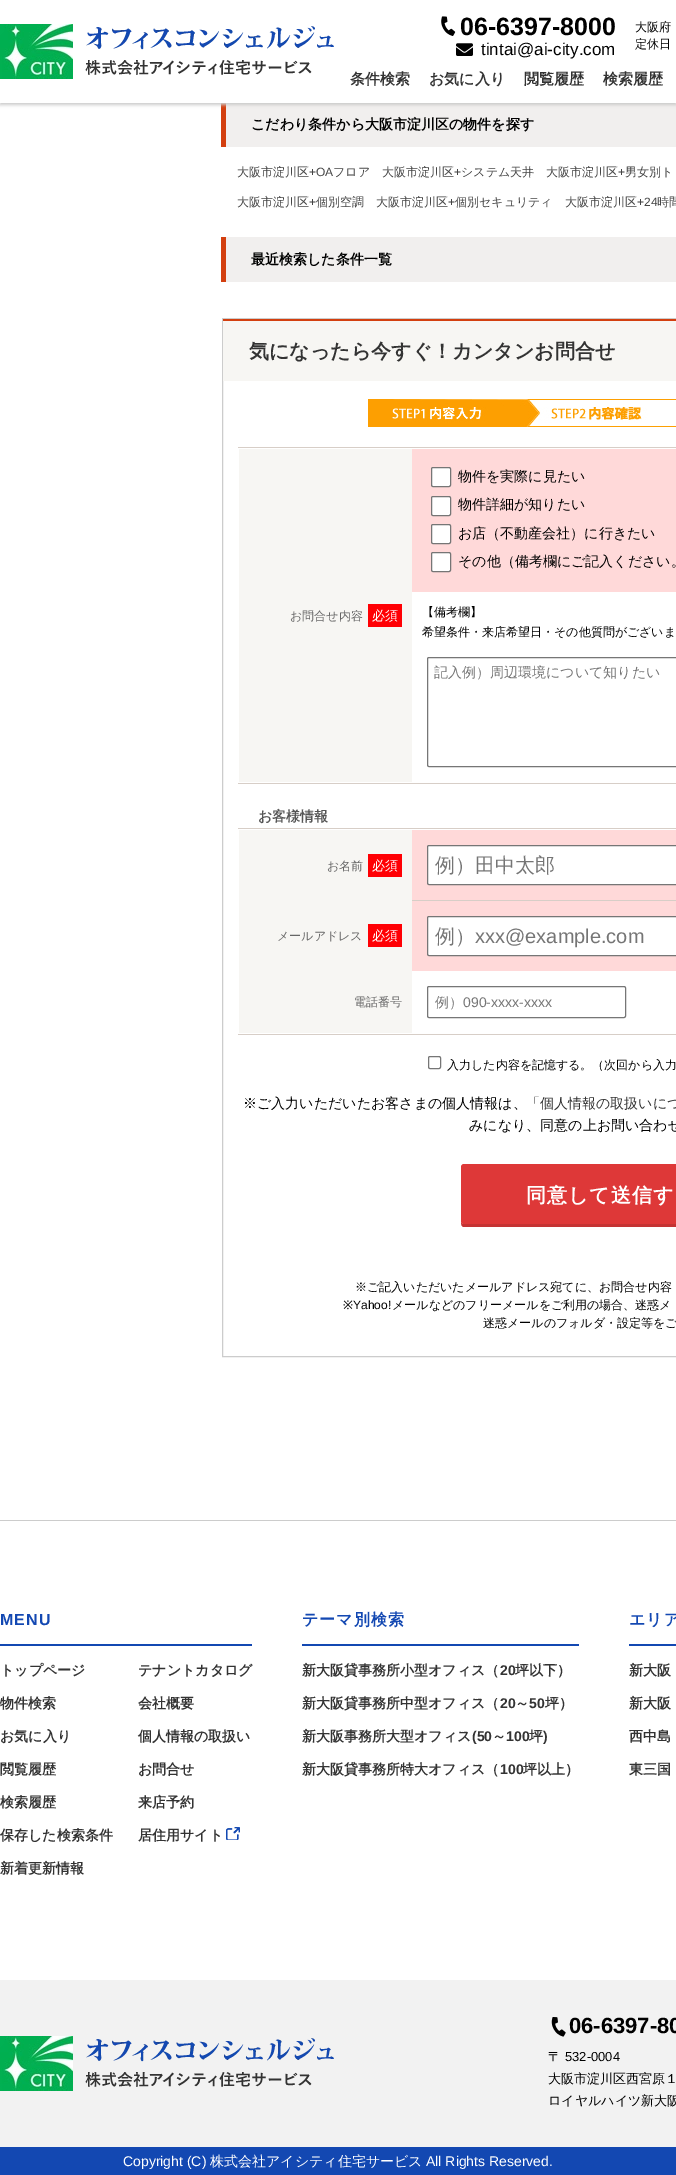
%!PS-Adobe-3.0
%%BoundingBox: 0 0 676 2175
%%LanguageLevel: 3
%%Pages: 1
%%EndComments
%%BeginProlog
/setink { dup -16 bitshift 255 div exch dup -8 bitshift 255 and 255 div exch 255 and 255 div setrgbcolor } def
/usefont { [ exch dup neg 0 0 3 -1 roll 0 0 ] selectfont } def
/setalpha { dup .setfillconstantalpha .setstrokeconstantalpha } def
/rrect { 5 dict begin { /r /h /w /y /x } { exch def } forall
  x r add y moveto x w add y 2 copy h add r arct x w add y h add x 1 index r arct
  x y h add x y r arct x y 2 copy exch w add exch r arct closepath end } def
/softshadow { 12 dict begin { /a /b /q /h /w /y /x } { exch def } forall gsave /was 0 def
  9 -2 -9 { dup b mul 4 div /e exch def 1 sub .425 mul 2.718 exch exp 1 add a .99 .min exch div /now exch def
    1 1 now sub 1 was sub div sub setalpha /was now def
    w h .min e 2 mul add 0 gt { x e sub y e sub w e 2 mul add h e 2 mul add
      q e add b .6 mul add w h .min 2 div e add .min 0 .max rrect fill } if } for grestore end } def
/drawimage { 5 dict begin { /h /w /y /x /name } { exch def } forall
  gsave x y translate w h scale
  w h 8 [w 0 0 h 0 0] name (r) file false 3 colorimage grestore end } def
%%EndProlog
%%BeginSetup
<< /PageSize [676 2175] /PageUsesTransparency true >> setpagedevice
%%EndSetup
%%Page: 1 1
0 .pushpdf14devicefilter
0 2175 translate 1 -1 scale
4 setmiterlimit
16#FFFFFF setink
0 0 676 2175 rectfill
16#F1EFEE setink
226 103 450 44 rectfill
16#D33F0F setink
221 102 5 45 rectfill
16#CCCCCC setink
0 2 676 103 0 1.5 1 softshadow
16#FFFFFF setink
0 0 676 103 rectfill
(img1.raw) 0 24 334 55 drawimage
(img2.raw) 441 16 15 20 drawimage
/LiberationSans-Bold 25 usefont
16#000000 setink
460 35 moveto (06-6397-8000) show
(img3.raw) 456 43 17 13 drawimage
/LiberationSans-Regular 17 usefont
481 55 moveto (tintai@ai-city.com) show
/WenQuanYiZenHei-Medium 12 usefont
635 31 moveto (大阪府) show
635 48 moveto (定休日) show
/WenQuanYiZenHei-Bold 15 usefont
16#333333 setink
[
    [(条件検索) 350 84]
    [(お気に入り) 429 84]
    [(閲覧履歴) 524 84]
    [(検索履歴) 603 84]
] { aload pop moveto show } forall
/WenQuanYiZenHei-Bold 14 usefont
16#000000 setink
251 129 moveto (こだわり条件から大阪市淀川区の物件を探す) show
/WenQuanYiZenHei-Medium 12 usefont
16#444444 setink
237 176 moveto (大阪市淀川区) show
/LiberationSans-Regular 12 usefont
309 176 moveto (+OA) show
/WenQuanYiZenHei-Medium 12 usefont
333 176 moveto (フロア) show
382 176 moveto (大阪市淀川区) show
/LiberationSans-Regular 12 usefont
454 176 moveto (+) show
/WenQuanYiZenHei-Medium 12 usefont
461 176 moveto (システム天井) show
546 176 moveto (大阪市淀川区) show
/LiberationSans-Regular 12 usefont
618 176 moveto (+) show
/WenQuanYiZenHei-Medium 12 usefont
625 176 moveto (男女別ト) show
237 206 moveto (大阪市淀川区) show
/LiberationSans-Regular 12 usefont
309 206 moveto (+) show
/WenQuanYiZenHei-Medium 12 usefont
316 206 moveto (個別空調) show
376 206 moveto (大阪市淀川区) show
/LiberationSans-Regular 12 usefont
448 206 moveto (+) show
/WenQuanYiZenHei-Medium 12 usefont
455 206 moveto (個別セキュリティ) show
565 206 moveto (大阪市淀川区) show
/LiberationSans-Regular 12 usefont
637 206 moveto (+24) show
/WenQuanYiZenHei-Medium 12 usefont
657 206 moveto (時間) show
16#F1EFEE setink
226 237 450 45 rectfill
16#D33F0F setink
221 237 5 45 rectfill
/WenQuanYiZenHei-Bold 14 usefont
16#000000 setink
251 264 moveto (最近検索した条件一覧) show
16#CCCCCC setink
222.5 318.5 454 1038 rectstroke
16#F7F6F3 setink
223 321 453 60 rectfill
16#D33F0F setink
223 319 453 2 rectfill
/WenQuanYiZenHei-Bold 20 usefont
16#333333 setink
249 358 moveto (気になったら今すぐ！カンタンお問合せ) show
(img4.raw) 368 399 308 28 drawimage
[
    [238 447 438 1 16#D7CEC7]
    [238 783 438 1 16#D7CEC7]
    [239 449 173 333 16#F7F6F3]
] { aload pop setink rectfill } forall
/WenQuanYiZenHei-Medium 12 usefont
16#666666 setink
290 620 moveto (お問合せ内容) show
16#FF0004 setink
368 604 34 23 rectfill
/WenQuanYiZenHei-Medium 13 usefont
16#FFFFFF setink
372 620 moveto (必須) show
16#FFD9D9 setink
412 449 264 143 rectfill
16#FFFFFF setink
431.5 467.5 19 19 1.5 rrect gsave fill grestore
16#767676 setink
stroke
/WenQuanYiZenHei-Medium 14 usefont
16#000000 setink
458 481 moveto (物件を実際に見たい) show
16#FFFFFF setink
431.5 496.5 19 19 1.5 rrect gsave fill grestore
16#767676 setink
stroke
16#000000 setink
458 509 moveto (物件詳細が知りたい) show
16#FFFFFF setink
431.5 524.5 19 19 1.5 rrect gsave fill grestore
16#767676 setink
stroke
16#000000 setink
458 538 moveto (お店（不動産会社）に行きたい) show
16#FFFFFF setink
431.5 552.5 19 19 1.5 rrect gsave fill grestore
16#767676 setink
stroke
16#000000 setink
458 566 moveto (その他（備考欄にご記入ください。) show
/WenQuanYiZenHei-Medium 12 usefont
422 616 moveto (【備考欄】) show
422 636 moveto (希望条件・来店希望日・その他質問がございま) show
16#767676 setink
427.5 657.5 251 109 1.5 rrect stroke
/WenQuanYiZenHei-Medium 14 usefont
16#757575 setink
434 677 moveto (記入例）周辺環境について知りたい) show
/WenQuanYiZenHei-Bold 14 usefont
16#555555 setink
258 821 moveto (お客様情報) show
[
    [238 828 438 1 16#D7CEC7]
    [238 1034 438 1 16#D7CEC7]
    [239 830 173 203 16#F7F6F3]
] { aload pop setink rectfill } forall
/WenQuanYiZenHei-Medium 12 usefont
16#666666 setink
327 870 moveto (お名前) show
16#FF0004 setink
368 854 34 23 rectfill
/WenQuanYiZenHei-Medium 13 usefont
16#FFFFFF setink
372 870 moveto (必須) show
16#FFD9D9 setink
412 830 264 70 rectfill
16#D7CEC7 setink
412 900 264 1 rectfill
16#FFFFFF setink
427.5 845.5 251 39 1.5 rrect gsave fill grestore
16#767676 setink
stroke
/WenQuanYiZenHei-Medium 20 usefont
16#757575 setink
435 872 moveto (例）田中太郎) show
/WenQuanYiZenHei-Medium 12 usefont
16#666666 setink
277 940 moveto (メールアドレス) show
16#FF0004 setink
368 924 34 23 rectfill
/WenQuanYiZenHei-Medium 13 usefont
16#FFFFFF setink
372 940 moveto (必須) show
16#FFD9D9 setink
412 901 264 70 rectfill
16#FFFFFF setink
427.5 916.5 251 39 1.5 rrect gsave fill grestore
16#767676 setink
stroke
/WenQuanYiZenHei-Medium 20 usefont
16#757575 setink
435 943 moveto (例）) show
/LiberationSans-Regular 20 usefont
475 943 moveto (xxx@example.com) show
/WenQuanYiZenHei-Medium 12 usefont
16#666666 setink
354 1006 moveto (電話番号) show
16#767676 setink
427.5 986.5 198 31 1.5 rrect stroke
/WenQuanYiZenHei-Medium 14 usefont
16#757575 setink
435 1007 moveto (例）) show
/LiberationSans-Regular 14 usefont
463 1007 moveto (090-xxxx-xxxx) show
16#767676 setink
428.5 1056.5 12 12 1.5 rrect stroke
/WenQuanYiZenHei-Medium 12 usefont
16#000000 setink
447 1069 moveto (入力した内容を記憶する。（次回から入力) show
/WenQuanYiZenHei-Medium 14 usefont
243 1108 moveto (※ご入力いただいたお客さまの個人情報は、) show
16#333333 setink
526 1108 moveto (「個人情報の取扱いにつ) show
16#000000 setink
469 1130 moveto (みになり、同意の上お問い合わせ) show
16#C43333 setink
461 1221 moveto 461 1223 461 1227 464 1227 curveto 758 1227 lineto 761 1227 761 1223 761 1221 curveto 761 1223 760 1224 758 1224 curveto 464 1224 lineto 462 1224 461 1223 461 1221 curveto closepath fill
16#DE3838 setink
461 1164 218 60 3 rrect fill
/WenQuanYiZenHei-Bold 20 usefont
16#FFFFFF setink
526 1202 moveto 1 0 (同意して送信す) ashow
/WenQuanYiZenHei-Medium 12 usefont
16#000000 setink
355 1291 moveto (※ご記入いただいたメールアドレス宛てに、お問合せ内容) show
/NotoSans-Regular 12 usefont
343 1309 moveto (※) show
/LiberationSans-Regular 12 usefont
353 1309 moveto (Yahoo!) show
/WenQuanYiZenHei-Medium 12 usefont
392 1309 moveto (メールなどのフリーメールをご利用の場合、迷惑メ) show
483 1327 moveto (迷惑メールのフォルダ・設定等をご) show
16#CCCCCC setink
0 1520 676 1 rectfill
16#1348B2 setink
0 1644 252 2 rectfill
/LiberationSans-Bold 16 usefont
0 1625 moveto 1 0 (MENU) ashow
/WenQuanYiZenHei-Bold 14 usefont
16#333333 setink
[
    [(トップページ) 0 1675]
    [(物件検索) 0 1708]
    [(お気に入り) 0 1741]
    [(閲覧履歴) 0 1774]
    [(検索履歴) 0 1807]
    [(保存した検索条件) 0 1840]
    [(新着更新情報) 0 1873]
    [(テナントカタログ) 138 1675]
    [(会社概要) 138 1708]
    [(個人情報の取扱い) 138 1741]
    [(お問合せ) 138 1774]
    [(来店予約) 138 1807]
    [(居住用サイト) 138 1840]
] { aload pop moveto show } forall
(img5.raw) 226 1827 14 13 drawimage
16#1348B2 setink
302 1644 277 2 rectfill
/WenQuanYiZenHei-Bold 16 usefont
302 1625 moveto 1 0 (テーマ別検索) ashow
/WenQuanYiZenHei-Bold 14 usefont
16#333333 setink
302 1675 moveto (新大阪貸事務所小型オフィス（) show
/LiberationSans-Bold 14 usefont
500 1675 moveto (20) show
/WenQuanYiZenHei-Bold 14 usefont
515 1675 moveto (坪以下）) show
302 1708 moveto (新大阪貸事務所中型オフィス（) show
/LiberationSans-Bold 14 usefont
500 1708 moveto (20) show
/WenQuanYiZenHei-Bold 14 usefont
515 1708 moveto (～) show
/LiberationSans-Bold 14 usefont
529 1708 moveto (50) show
/WenQuanYiZenHei-Bold 14 usefont
545 1708 moveto (坪）) show
302 1741 moveto (新大阪事務所大型オフィス) show
/LiberationSans-Bold 14 usefont
472 1741 moveto (\(50) show
/WenQuanYiZenHei-Bold 14 usefont
492 1741 moveto (～) show
/LiberationSans-Bold 14 usefont
506 1741 moveto (100) show
/WenQuanYiZenHei-Bold 14 usefont
529 1741 moveto (坪) show
/LiberationSans-Bold 14 usefont
543 1741 moveto (\)) show
/WenQuanYiZenHei-Bold 14 usefont
302 1774 moveto (新大阪貸事務所特大オフィス（) show
/LiberationSans-Bold 14 usefont
500 1774 moveto (100) show
/WenQuanYiZenHei-Bold 14 usefont
523 1774 moveto (坪以上）) show
16#1348B2 setink
629 1644 47 2 rectfill
/WenQuanYiZenHei-Bold 16 usefont
629 1625 moveto 1 0 (エリア) ashow
/WenQuanYiZenHei-Bold 14 usefont
16#333333 setink
[
    [(新大阪) 629 1675]
    [(新大阪) 629 1708]
    [(西中島) 629 1741]
    [(東三国) 629 1774]
] { aload pop moveto show } forall
16#F2F2F2 setink
0 1980 676 167 rectfill
(img6.raw) 0 2036 334 55 drawimage
(img7.raw) 551 2017 15 20 drawimage
/LiberationSans-Bold 22 usefont
16#000000 setink
569 2033 moveto (06-6397-80) show
/WenQuanYiZenHei-Medium 13 usefont
548 2061 moveto (〒) show
/LiberationSans-Regular 13 usefont
565 2061 moveto (532-0004) show
/WenQuanYiZenHei-Medium 13 usefont
548 2083 moveto (大阪市淀川区西宮原１) show
548 2105 moveto (ロイヤルハイツ新大阪) show
16#1348B2 setink
0 2147 676 28 rectfill
/LiberationSans-Regular 14 usefont
16#FFFFFF setink
123 2166 moveto (Copyright \(C\)) show
/WenQuanYiZenHei-Medium 14 usefont
210 2166 moveto (株式会社アイシティ住宅サービス) show
/LiberationSans-Regular 14 usefont
426 2166 moveto (All Rights Reserved.) show
.poppdf14devicefilter showpage
%%EOF
